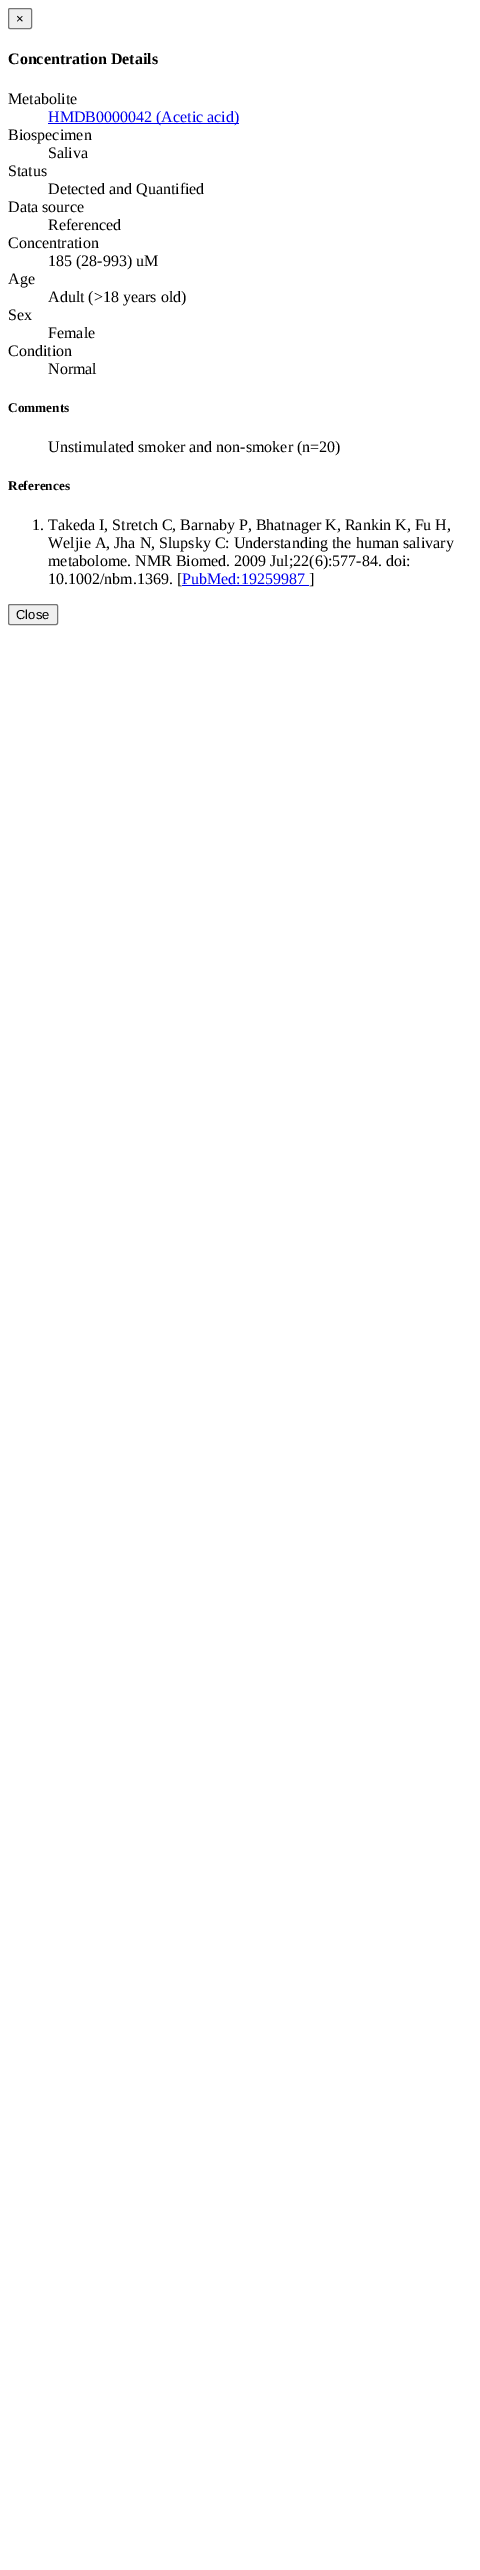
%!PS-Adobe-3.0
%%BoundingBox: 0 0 480 2570
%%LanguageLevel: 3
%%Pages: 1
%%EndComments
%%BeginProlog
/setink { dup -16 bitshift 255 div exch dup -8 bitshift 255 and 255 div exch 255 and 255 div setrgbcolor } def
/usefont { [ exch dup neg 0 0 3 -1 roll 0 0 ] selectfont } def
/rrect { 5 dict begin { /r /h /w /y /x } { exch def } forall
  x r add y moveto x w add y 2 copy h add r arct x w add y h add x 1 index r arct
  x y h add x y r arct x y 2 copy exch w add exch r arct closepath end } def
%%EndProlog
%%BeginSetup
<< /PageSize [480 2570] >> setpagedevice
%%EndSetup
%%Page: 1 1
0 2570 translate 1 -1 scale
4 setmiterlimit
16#FFFFFF setink
0 0 480 2570 rectfill
16#EFEFEF setink
8.5 8.5 23 20 1.5 rrect gsave fill grestore
16#767676 setink
stroke
/LiberationSans-Regular 13 usefont
16#000000 setink
16 23 moveto (×) show
/LiberationSerif-Bold 16 usefont
8 64 moveto (Concentration Details) show
/LiberationSerif-Regular 16 usefont
8 104 moveto (Metabolite) show
16#0000EE setink
48 123 191 1 rectfill
48 122 moveto (HMDB0000042 \(Acetic acid\)) show
16#000000 setink
[
    [(Biospecimen) 8 140]
    [(Saliva) 48 158]
    [(Status) 8 176]
    [(Detected and Quantified) 48 194]
    [(Data source) 8 212]
    [(Referenced) 48 230]
    [(Concentration) 8 248]
    [(185 \(28-993\) uM) 48 266]
    [(Age) 8 284]
    [(Adult \(>18 years old\)) 48 302]
    [(Sex) 8 320]
    [(Female) 48 338]
    [(Condition) 8 356]
    [(Normal) 48 374]
] { aload pop moveto show } forall
/LiberationSerif-Bold 13.25 usefont
8 412 moveto (Comments) show
/LiberationSerif-Regular 16 usefont
48 452 moveto (Unstimulated smoker and non-smoker \(n=20\)) show
/LiberationSerif-Bold 13.25 usefont
8 490 moveto (References) show
/LiberationSerif-Regular 16 usefont
[
    [(1. Takeda I, Stretch C, Barnaby P, Bhatnager K, Rankin K, Fu H,) 32 530]
    [(Weljie A, Jha N, Slupsky C: Understanding the human salivary) 48 548]
    [(metabolome. NMR Biomed. 2009 Jul;22\(6\):577-84. doi:) 48 566]
    [(10.1002/nbm.1369. [) 48 584]
] { aload pop moveto show } forall
16#0000EE setink
182 584 moveto (PubMed:19259987) show
182 585 127 1 rectfill
16#000000 setink
309 584 moveto (]) show
16#EFEFEF setink
8.5 604.5 49 20 1.5 rrect gsave fill grestore
16#767676 setink
stroke
/LiberationSans-Regular 13 usefont
16#000000 setink
16 619 moveto (Close) show
showpage
%%EOF
